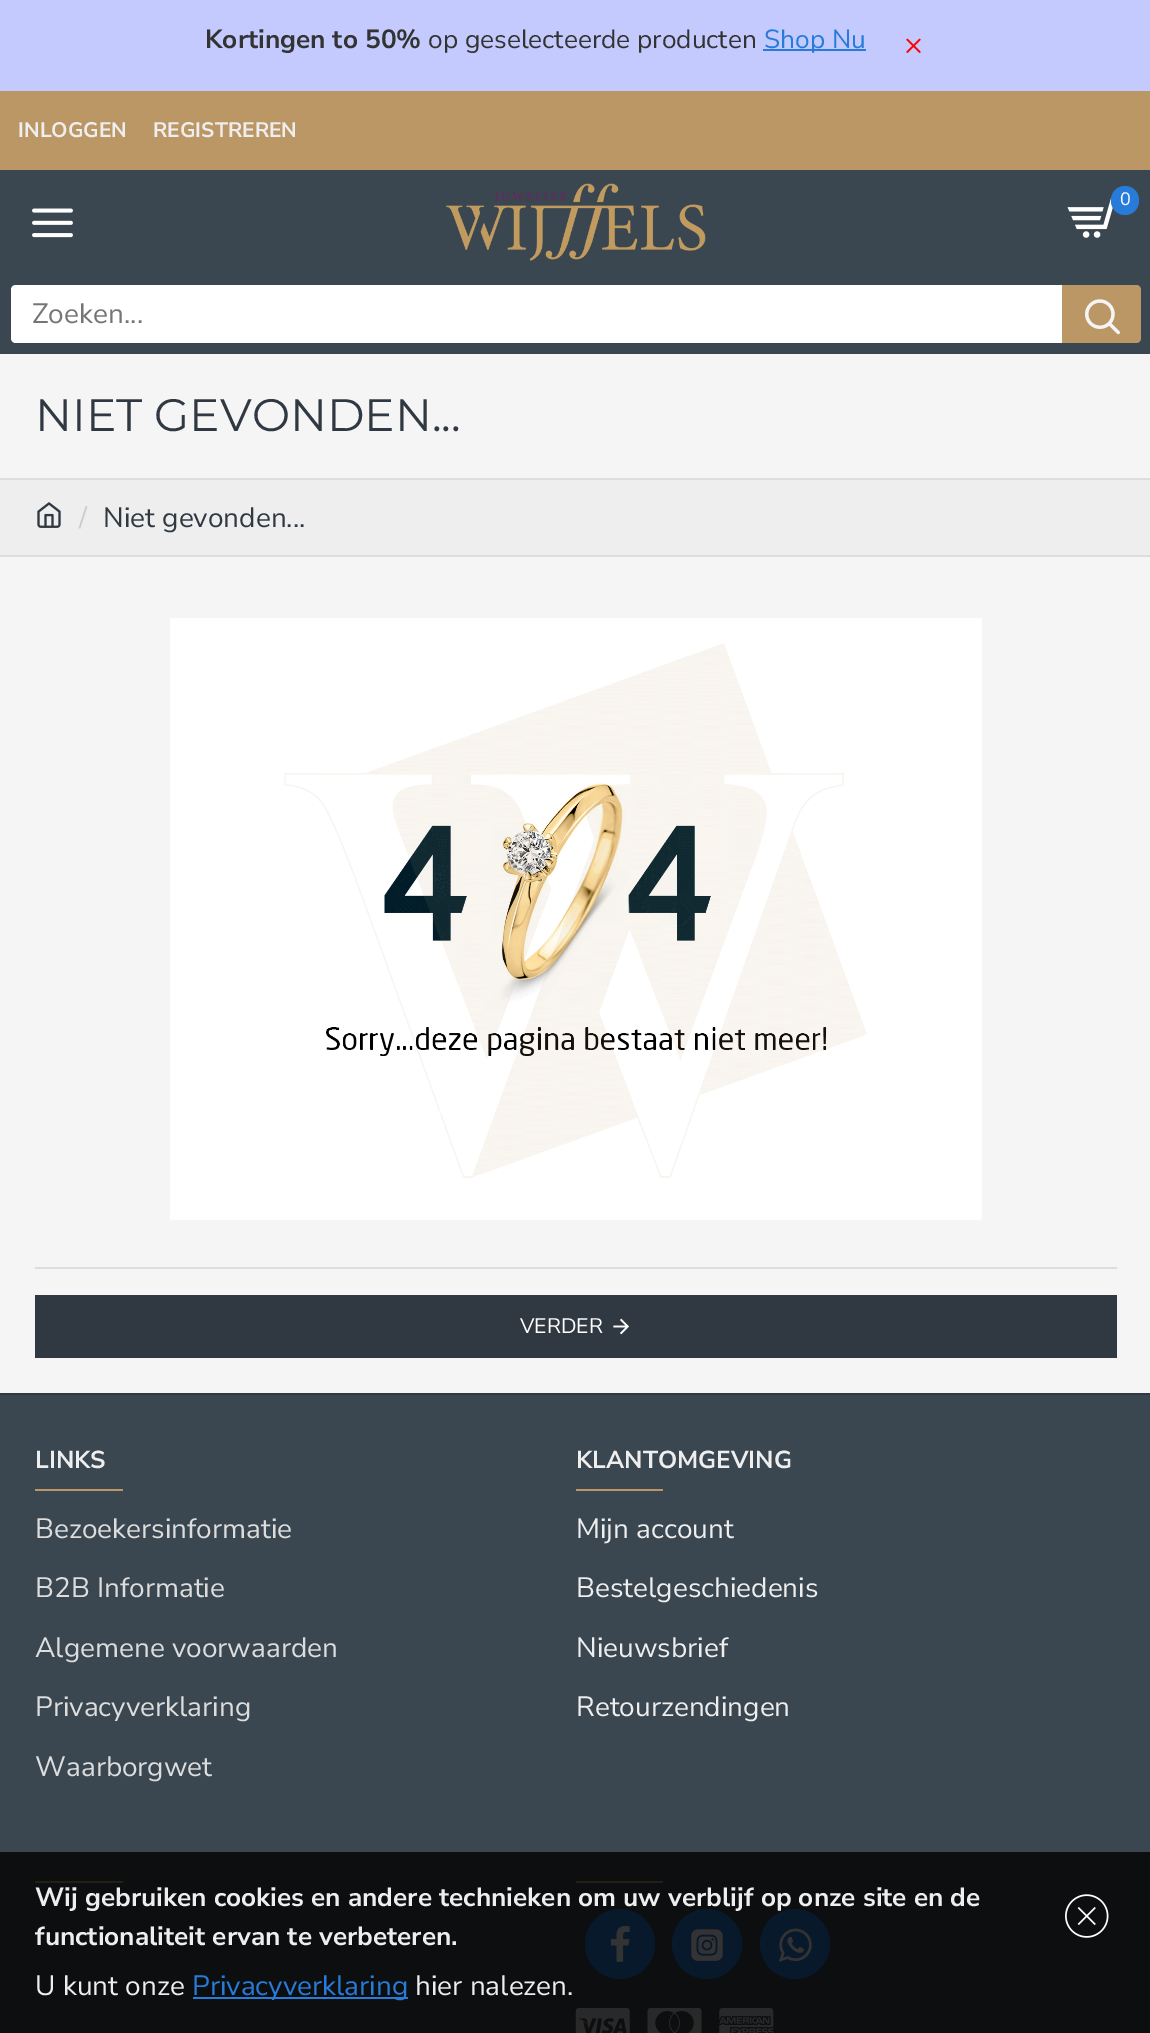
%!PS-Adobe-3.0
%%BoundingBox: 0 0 1150 2033
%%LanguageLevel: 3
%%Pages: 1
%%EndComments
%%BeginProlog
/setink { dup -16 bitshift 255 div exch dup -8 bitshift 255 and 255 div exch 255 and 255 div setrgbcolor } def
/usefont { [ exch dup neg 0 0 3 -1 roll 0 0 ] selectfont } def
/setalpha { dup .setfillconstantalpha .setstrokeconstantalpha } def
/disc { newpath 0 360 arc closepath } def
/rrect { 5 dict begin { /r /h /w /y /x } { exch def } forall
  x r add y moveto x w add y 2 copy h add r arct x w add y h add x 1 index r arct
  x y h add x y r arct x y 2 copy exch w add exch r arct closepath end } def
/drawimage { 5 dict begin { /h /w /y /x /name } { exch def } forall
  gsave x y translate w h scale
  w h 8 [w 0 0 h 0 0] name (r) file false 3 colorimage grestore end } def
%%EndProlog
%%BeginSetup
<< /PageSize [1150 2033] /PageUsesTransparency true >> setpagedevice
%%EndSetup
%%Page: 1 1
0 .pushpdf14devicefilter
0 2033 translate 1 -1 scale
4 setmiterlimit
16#F5F5F5 setink
0 0 1150 2033 rectfill
16#C4CAFD setink
0 0 1150 91 rectfill
/NunitoSans-Bold 26.25 usefont
16#333333 setink
205 48 moveto (Kortingen to 50%) show
/NunitoSans-Regular 26.25 usefont
428 48 moveto (op geselecteerde producten) show
16#277CD9 setink
763 49 103 2 rectfill
764 48 moveto (Shop Nu) show
(img1.raw) 906 38 15 15 drawimage
16#BA9765 setink
0 91 1150 79 rectfill
/NunitoSans-Bold 21 usefont
16#EEEEEE setink
18 137 moveto (INLOGGEN) show
153 137 moveto (REGISTREREN) show
16#3A4750 setink
0 170 1150 184 rectfill
(img2.raw) 446 183 260 78 drawimage
(img3.raw) 1067 198 46 40 drawimage
16#277CD9 setink
1111 186 28 29 14 rrect fill
/NunitoSans-Regular 18 usefont
16#FFFFFF setink
1120 205 moveto (0) show
(img4.raw) 32 208 41 30 drawimage
16 285 moveto 1062 285 lineto 1062 343 lineto 16 343 lineto 13 343 11 341 11 338 curveto 11 290 lineto 11 287 13 285 16 285 curveto closepath fill
/NunitoSans-Regular 28 usefont
16#757575 setink
32 323 moveto (Zoeken...) show
16#BA9765 setink
1062 285 moveto 1136 285 lineto 1139 285 1141 287 1141 290 curveto 1141 338 lineto 1141 341 1139 343 1136 343 curveto 1062 343 lineto closepath fill
(img5.raw) 1085 299 35 36 drawimage
16#DDDDDD setink
0 478 1150 2 rectfill
/Montserrat-Thin 45.5 usefont
16#303841 setink
35 431 moveto (NIET GEVONDEN...) show
16#EEEEEE setink
0 480 1150 75 rectfill
16#DDDDDD setink
0 555 1150 2 rectfill
(img6.raw) 37 502 24 26 drawimage
/NunitoSans-Regular 28 usefont
16#CCCCCC setink
79 527 moveto (/) show
16#303841 setink
103 527 moveto (Niet gevonden...) show
(img7.raw) 170 618 812 602 drawimage
16#DDDDDD setink
35 1267 1082 2 rectfill
16#303841 setink
35 1295 1082 63 rectfill
/NunitoSans-Regular 21 usefont
16#FFFFFF setink
520 1333 moveto (VERDER) show
(img8.raw) 613 1318 16 17 drawimage
16#3A4750 setink
0 1395 1150 638 rectfill
16#303841 setink
0 1393 1150 2 rectfill
/NunitoSans-Bold 24.5 usefont
16#EEEEEE setink
35 1468 moveto (LINKS) show
16#BA9765 setink
35 1489 88 2 rectfill
/NunitoSans-Regular 28 usefont
16#DDDDDD setink
[
    [(Bezoekersinformatie) 35 1538]
    [(B2B Informatie) 35 1597]
    [(Algemene voorwaarden) 35 1657]
    [(Privacyverklaring) 35 1716]
    [(Waarborgwet) 35 1776]
] { aload pop moveto show } forall
/NunitoSans-Bold 24.5 usefont
16#EEEEEE setink
576 1468 moveto (KLANTOMGEVING) show
16#BA9765 setink
576 1489 87 2 rectfill
/NunitoSans-Regular 28 usefont
16#EEEEEE setink
[
    [(Mijn account) 576 1538]
    [(Bestelgeschiedenis) 576 1597]
    [(Nieuwsbrief) 576 1657]
    [(Retourzendingen) 576 1716]
] { aload pop moveto show } forall
16#BA9765 setink
35 1881 88 2 rectfill
576 1881 87 2 rectfill
16#277CD9 setink
620 1944 35 disc fill
(img9.raw) 611 1926 19 36 drawimage
707 1944 35 disc fill
(img10.raw) 691 1929 32 32 drawimage
795 1944 35 disc fill
(img11.raw) 778 1928 34 34 drawimage
(img12.raw) 575 2008 55 25 drawimage
(img13.raw) 647 2008 55 25 drawimage
(img14.raw) 719 2008 55 25 drawimage
0.8 setalpha
16#000000 setink
0 1852 1150 181 rectfill
/NunitoSans-Bold 26.25 usefont
1 setalpha
16#EEEEEE setink
35 1906 moveto (Wij gebruiken cookies en andere technieken om uw verblijf op onze site en de) show
35 1945 moveto (functionaliteit ervan te verbeteren.) show
/NunitoSans-Regular 28 usefont
35 1995 moveto (U kunt onze) show
16#277CD9 setink
193 1997 215 2 rectfill
192 1995 moveto (Privacyverklaring) show
16#EEEEEE setink
415 1995 moveto (hier nalezen.) show
(img15.raw) 1065 1894 44 44 drawimage
.poppdf14devicefilter showpage
%%EOF
